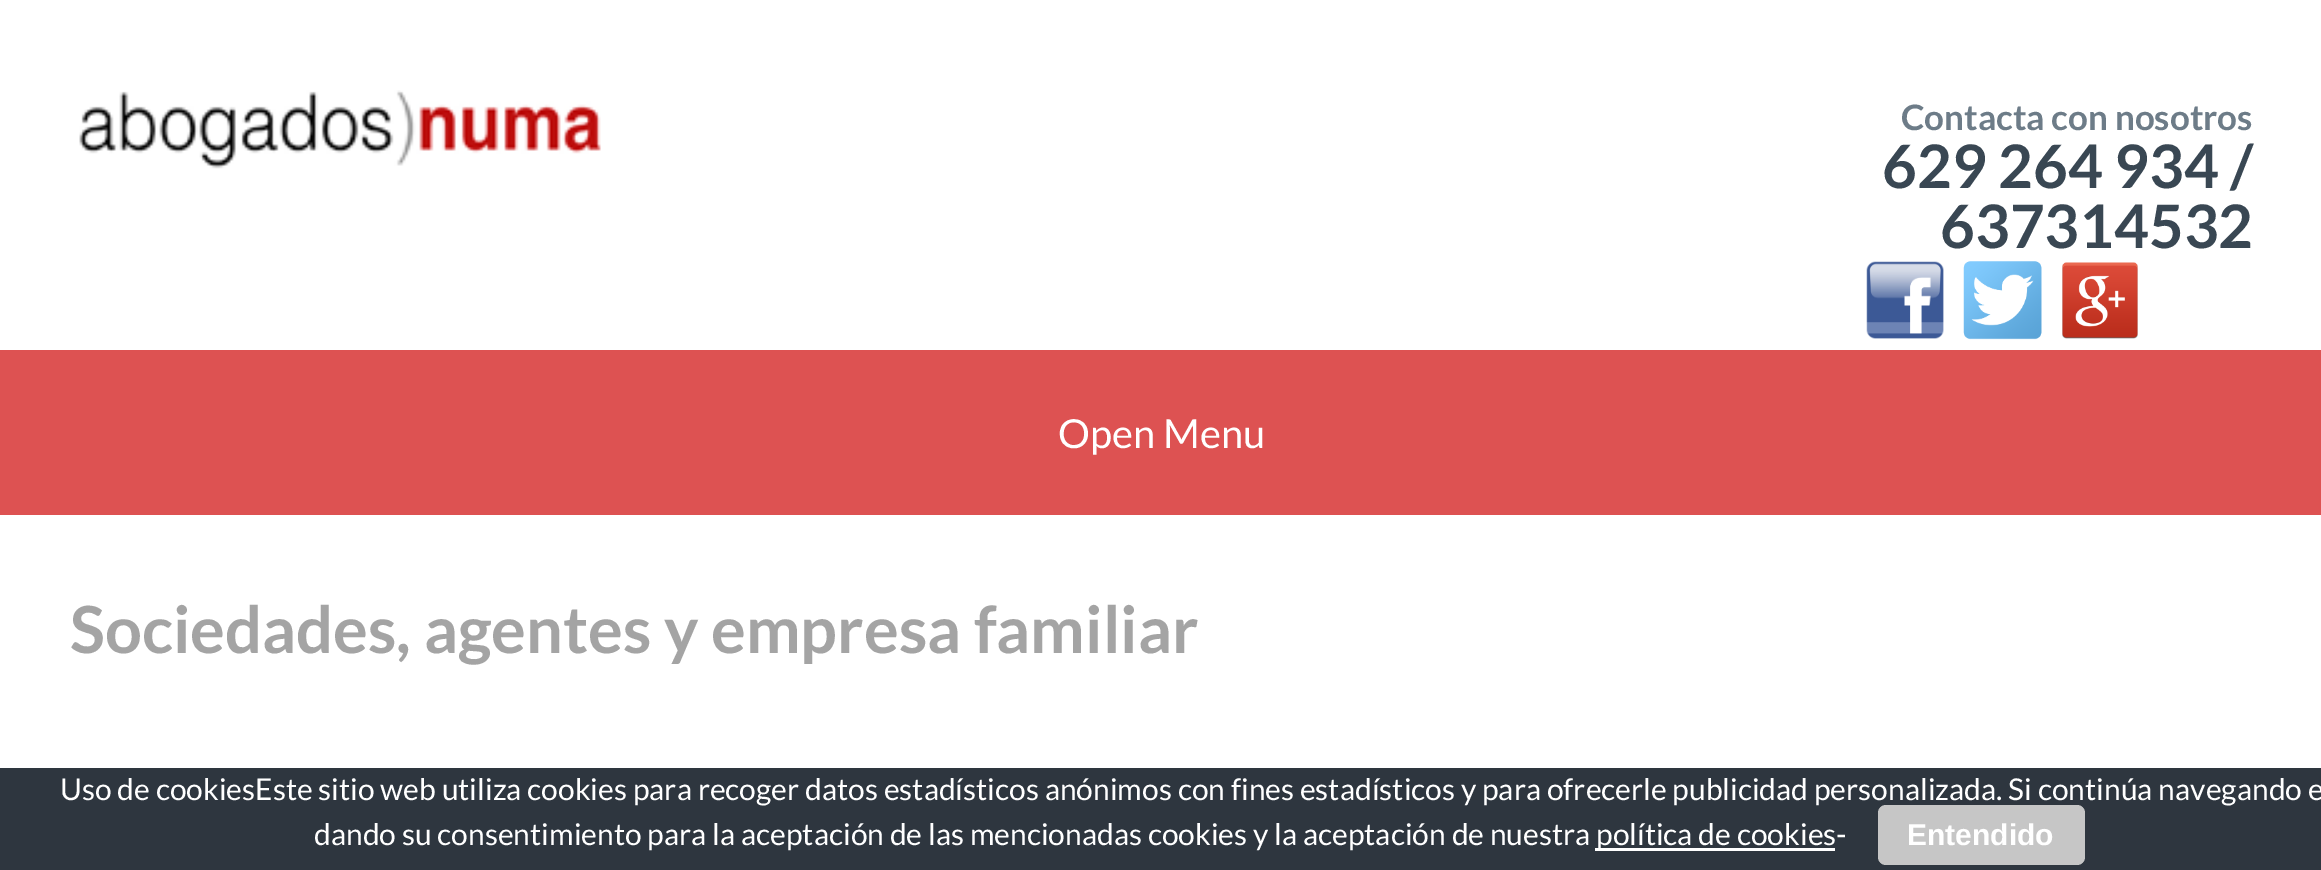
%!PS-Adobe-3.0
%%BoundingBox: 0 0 2321 870
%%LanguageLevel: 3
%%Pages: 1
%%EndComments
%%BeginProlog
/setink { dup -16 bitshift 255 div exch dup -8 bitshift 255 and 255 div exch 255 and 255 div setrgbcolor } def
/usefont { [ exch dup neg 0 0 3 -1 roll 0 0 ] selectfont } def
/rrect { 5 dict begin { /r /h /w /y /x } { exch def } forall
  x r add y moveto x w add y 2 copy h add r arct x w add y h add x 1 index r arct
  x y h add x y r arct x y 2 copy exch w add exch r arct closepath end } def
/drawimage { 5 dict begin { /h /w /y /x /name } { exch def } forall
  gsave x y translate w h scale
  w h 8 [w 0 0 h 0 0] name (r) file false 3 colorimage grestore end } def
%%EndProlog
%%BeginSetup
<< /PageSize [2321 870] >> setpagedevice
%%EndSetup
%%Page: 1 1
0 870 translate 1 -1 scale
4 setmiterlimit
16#DD5252 setink
0 0 2321 870 rectfill
16#FFFFFF setink
0 0 2321 350 rectfill
(img1.raw) 79 90 522 79 drawimage
/Lato-Bold 35 usefont
16#6D7C88 setink
1901 130 moveto (Contacta con nosotros) show
/Lato-Bold 60 usefont
16#394753 setink
1882 188 moveto (629 264 934 /) show
1940 248 moveto (637314532) show
(img2.raw) 1866 261 78 78 drawimage
(img3.raw) 1963 261 79 79 drawimage
(img4.raw) 2062 262 76 77 drawimage
/Lato-Regular 40 usefont
16#FFFFFF setink
1058 448 moveto (Open Menu) show
0 515 2321 253 rectfill
/Lato-Bold 65 usefont
16#A4A4A4 setink
70 653 moveto (Sociedades, agentes y empresa familiar) show
16#2E363F setink
0 768 2321 102 rectfill
/Lato-Regular 30 usefont
16#FFFFFF setink
60 800 moveto (Uso de cookiesEste sitio web utiliza cookies para recoger datos estadísticos anónimos con fines estadísticos y para ofrecerle publicidad personalizada. Si continúa navegando e) show
314 845 moveto (dando su consentimiento para la aceptación de las mencionadas cookies y la aceptación de nuestra) show
1595 848 240 3 rectfill
1596 845 moveto (política de cookies-) show
16#C6C6C6 setink
1878 805 207 60 8 rrect fill
/LiberationSans-Bold 30 usefont
16#FFFFFF setink
1907 845 moveto (Entendido) show
showpage
%%EOF
